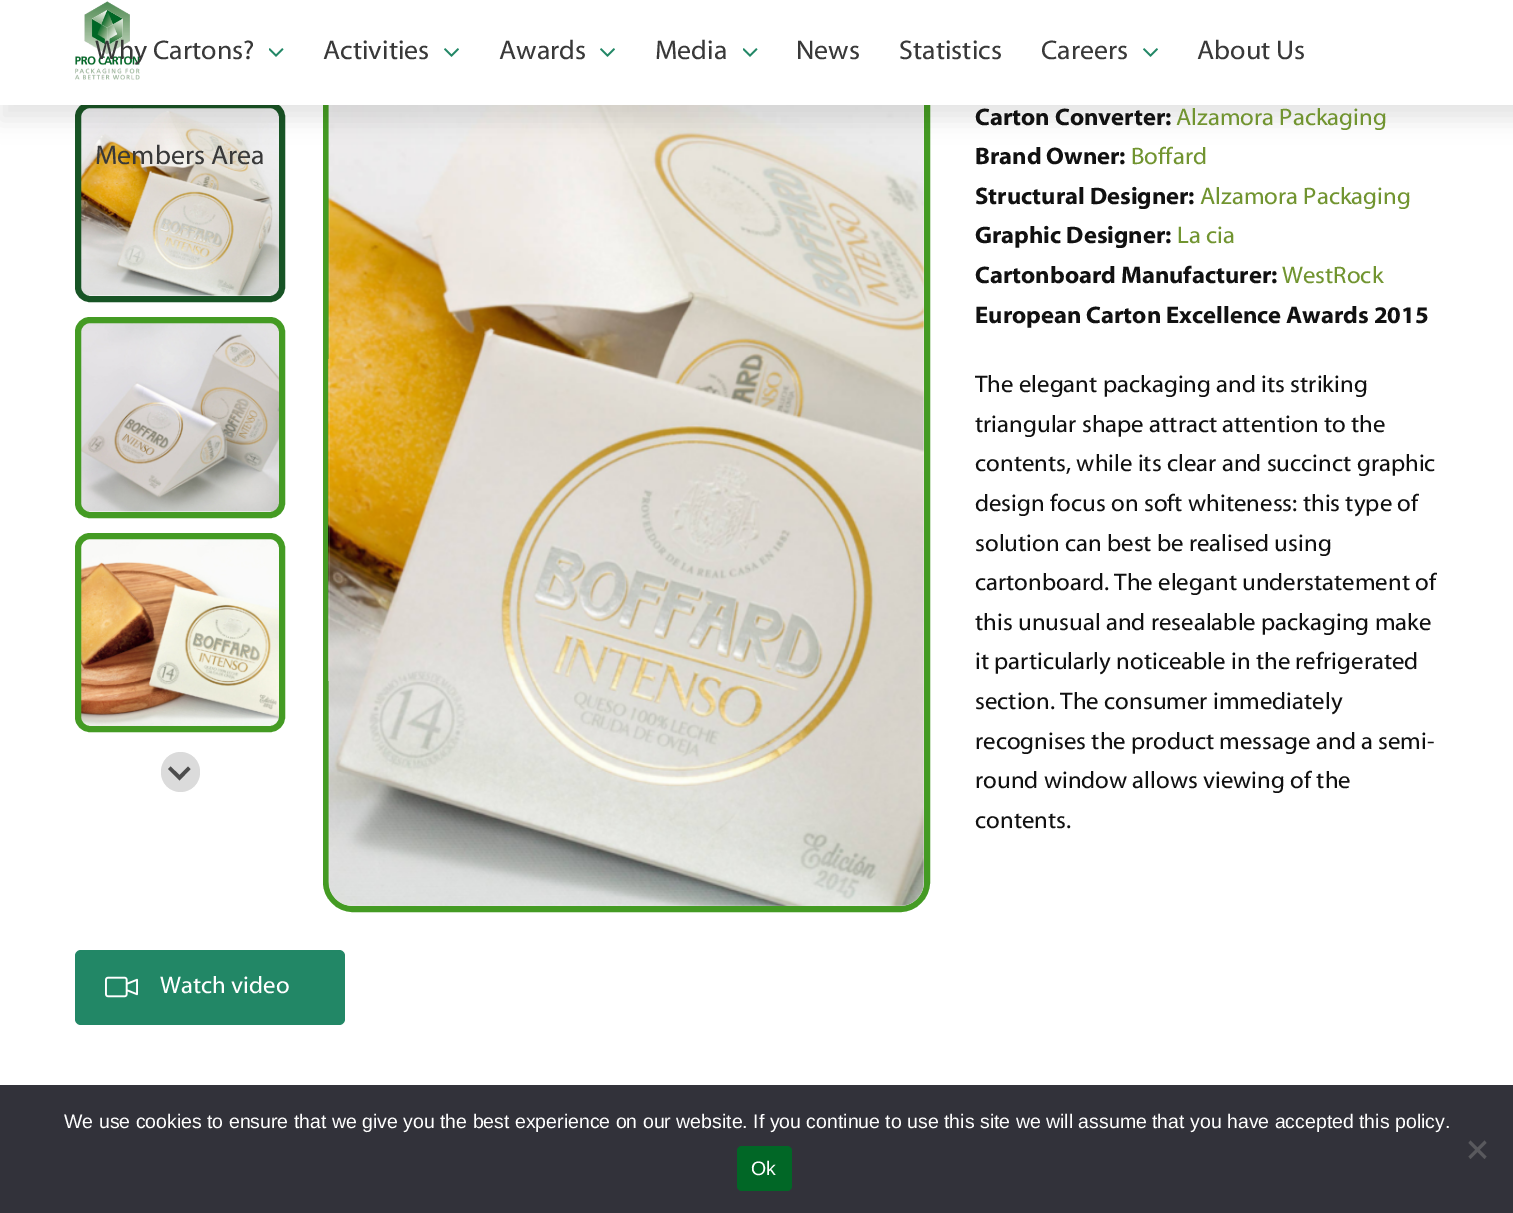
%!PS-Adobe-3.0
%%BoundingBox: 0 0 1513 1213
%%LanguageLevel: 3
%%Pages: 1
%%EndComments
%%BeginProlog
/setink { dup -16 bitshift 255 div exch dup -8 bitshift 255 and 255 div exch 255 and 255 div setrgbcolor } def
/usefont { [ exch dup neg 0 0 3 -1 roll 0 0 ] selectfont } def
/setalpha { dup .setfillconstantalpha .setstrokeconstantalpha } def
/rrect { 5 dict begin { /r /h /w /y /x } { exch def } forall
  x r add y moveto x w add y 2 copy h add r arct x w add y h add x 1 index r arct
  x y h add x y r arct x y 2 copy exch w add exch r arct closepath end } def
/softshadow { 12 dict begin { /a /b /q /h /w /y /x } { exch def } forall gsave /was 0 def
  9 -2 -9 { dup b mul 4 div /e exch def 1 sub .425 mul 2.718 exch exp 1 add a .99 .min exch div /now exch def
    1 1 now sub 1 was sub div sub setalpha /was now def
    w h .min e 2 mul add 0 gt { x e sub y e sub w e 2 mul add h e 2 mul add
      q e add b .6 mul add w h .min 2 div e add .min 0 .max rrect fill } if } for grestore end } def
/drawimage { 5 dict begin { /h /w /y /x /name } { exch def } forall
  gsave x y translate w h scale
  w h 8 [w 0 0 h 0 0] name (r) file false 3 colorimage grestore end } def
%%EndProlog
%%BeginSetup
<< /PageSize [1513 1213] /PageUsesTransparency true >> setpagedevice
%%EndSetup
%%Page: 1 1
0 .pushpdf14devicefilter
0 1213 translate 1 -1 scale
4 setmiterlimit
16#FFFFFF setink
0 0 1513 1213 rectfill
(img4.raw) 75 108 210 188 drawimage
16#175425 setink
6 setlinewidth
78 105 204 194 12 rrect stroke
16#449B23 setink
326 33 601 876 27 rrect stroke
(img7.raw) 328 105 596 801 drawimage
16#000000 setink
0 0 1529 120 0 11 0.1 softshadow
16#FFFFFF setink
0 0 1513 105 rectfill
(img1.raw) 75 1 65 79 drawimage
/Myriad-Regular 27 usefont
16#393939 setink
95 59 moveto (Why Cartons?) show
(img2.raw) 269 48 15 9 drawimage
323 59 moveto (Activities) show
(img3.raw) 444 48 15 9 drawimage
499 59 moveto (Awards) show
(img3.raw) 600 48 15 9 drawimage
655 59 moveto (Media) show
(img2.raw) 743 48 15 9 drawimage
[
    [(News) 796 59]
    [(Statistics) 899 59]
    [(Careers) 1041 59]
] { aload pop moveto show } forall
(img3.raw) 1143 48 15 9 drawimage
1197 59 moveto (About Us) show
95 164 moveto (Members Area) show
/Myriad-Bold 24 usefont
16#111111 setink
975 125 moveto (Carton Converter:) show
/Myriad-Regular 24 usefont
16#719430 setink
1176 125 moveto (Alzamora Packaging) show
/Myriad-Bold 24 usefont
16#111111 setink
975 164 moveto (Brand Owner:) show
/Myriad-Regular 24 usefont
16#719430 setink
1131 164 moveto (Boffard) show
/Myriad-Bold 24 usefont
16#111111 setink
975 204 moveto (Structural Designer:) show
/Myriad-Regular 24 usefont
16#719430 setink
1200 204 moveto (Alzamora Packaging) show
/Myriad-Bold 24 usefont
16#111111 setink
975 243 moveto (Graphic Designer:) show
/Myriad-Regular 24 usefont
16#719430 setink
1177 243 moveto (La cia) show
/Myriad-Bold 24 usefont
16#111111 setink
975 283 moveto (Cartonboard Manufacturer:) show
/Myriad-Regular 24 usefont
16#719430 setink
1282 283 moveto (WestRock) show
/Myriad-Bold 24 usefont
16#111111 setink
975 323 moveto (European Carton Excellence Awards 2015) show
/Myriad-Regular 24 usefont
[
    [(The elegant packaging and its striking) 975 392]
    [(triangular shape attract attention to the) 975 432]
    [(contents, while its clear and succinct graphic) 975 471]
    [(design focus on soft whiteness: this type of) 975 511]
    [(solution can best be realised using) 975 551]
    [(cartonboard. The elegant understatement of) 975 590]
    [(this unusual and resealable packaging make) 975 630]
    [(it particularly noticeable in the refrigerated) 975 669]
    [(section. The consumer immediately) 975 709]
    [(recognises the product message and a semi-) 975 749]
    [(round window allows viewing of the) 975 788]
    [(contents.) 975 828]
] { aload pop moveto show } forall
(img5.raw) 75 322 210 190 drawimage
16#449B23 setink
78 320 204 195 12 rrect stroke
(img6.raw) 75 538 210 188 drawimage
78 536 204 193 12 rrect stroke
16#DBDBDB setink
161 752 39 40 19.5 rrect fill
16#4D4D4D setink
190.5 769 moveto 188 766.5 lineto 179.5 775 lineto 170.5 766.5 lineto 168 769 lineto 179.5 780.5 lineto closepath fill
16#228766 setink
75 950 270 75 6 rrect fill
(img8.raw) 105 976 33 22 drawimage
16#FFFFFF setink
160 993 moveto (Watch video) show
16#32323A setink
0 1085 1513 128 rectfill
/LiberationSans-Regular 19.5 usefont
16#FFFFFF setink
64 1128 moveto (We use cookies to ensure that we give you the best experience on our website. If you continue to use this site we will assume that you have accepted this policy.) show
16#59595D setink
1484.5 1140.5 moveto 1486.5 1143 lineto 1470.5 1159 lineto 1468.5 1156.5 lineto closepath fill
1468.5 1143 moveto 1470.5 1140.5 lineto 1486.5 1156.5 lineto 1484.5 1159 lineto closepath fill
16#016726 setink
737 1146 55 45 5 rrect fill
16#FFFFFF setink
751 1175 moveto (Ok) show
.poppdf14devicefilter showpage
%%EOF
